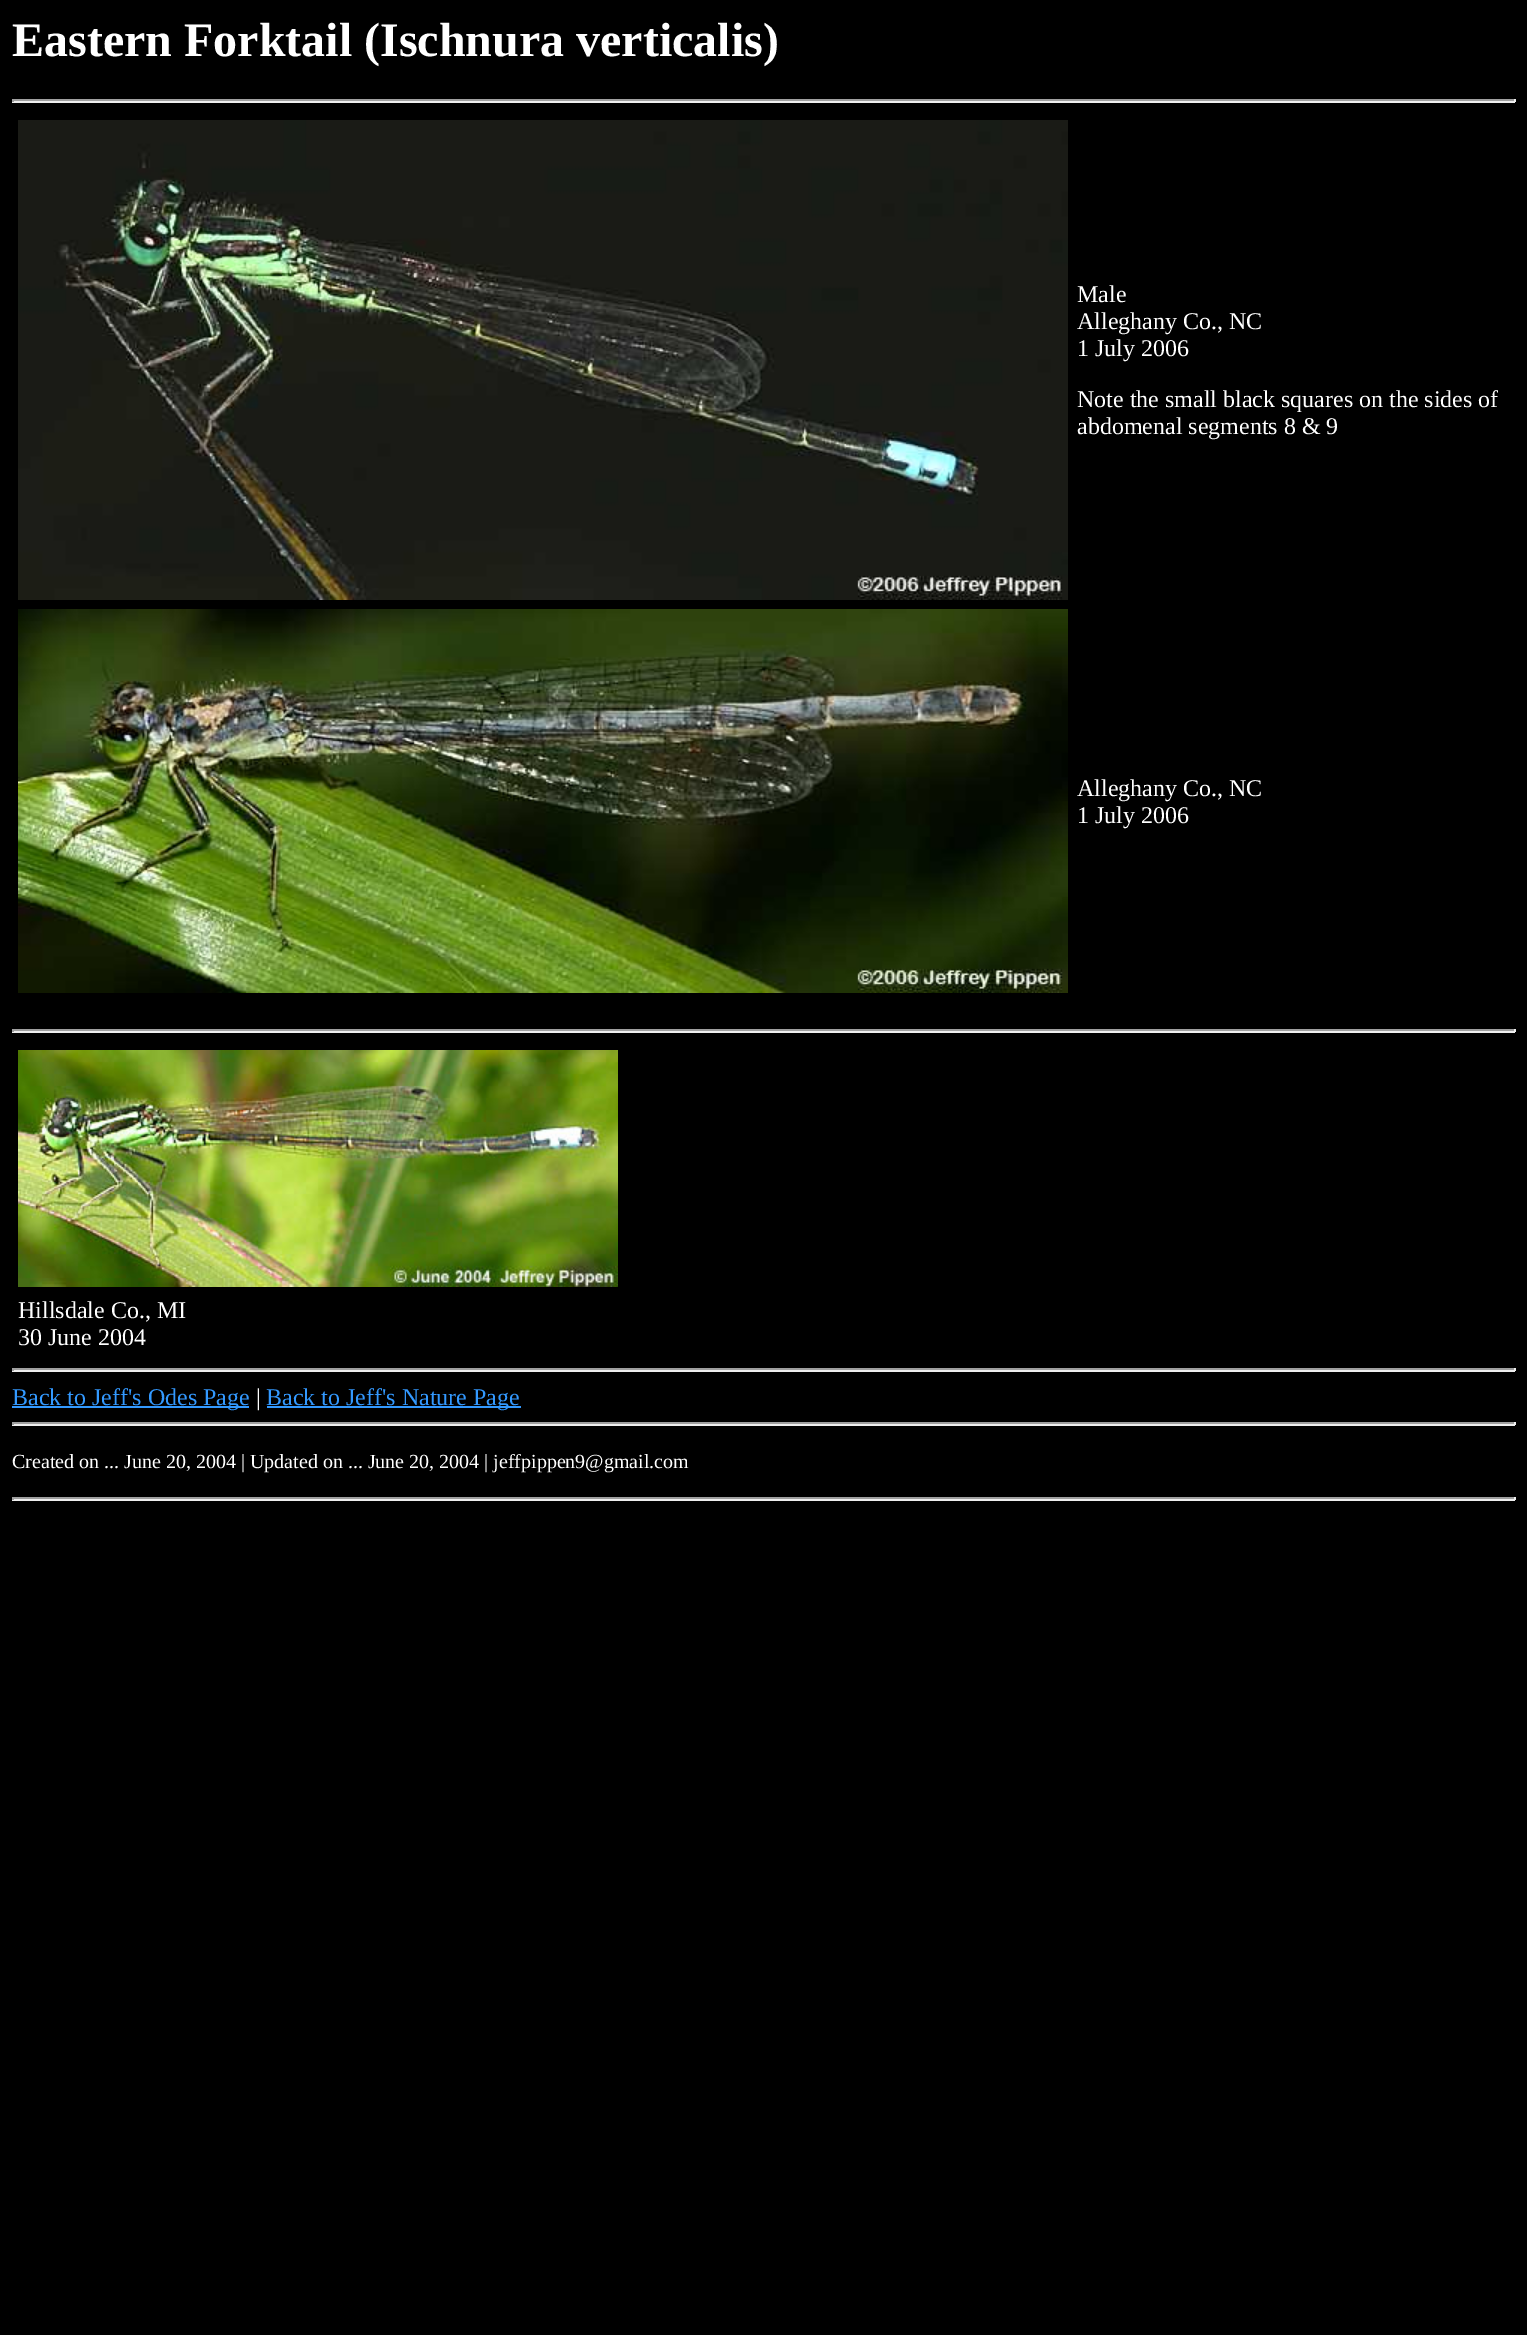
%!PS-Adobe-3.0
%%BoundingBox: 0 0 1527 2335
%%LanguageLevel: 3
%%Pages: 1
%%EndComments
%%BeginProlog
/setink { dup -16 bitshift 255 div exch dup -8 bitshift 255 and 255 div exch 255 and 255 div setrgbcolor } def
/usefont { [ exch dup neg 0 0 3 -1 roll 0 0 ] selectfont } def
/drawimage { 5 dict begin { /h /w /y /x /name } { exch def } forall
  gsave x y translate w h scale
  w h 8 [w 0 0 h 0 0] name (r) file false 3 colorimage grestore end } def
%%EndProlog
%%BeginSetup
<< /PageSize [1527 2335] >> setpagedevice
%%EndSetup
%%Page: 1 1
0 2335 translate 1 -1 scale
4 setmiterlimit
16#000000 setink
0 0 1527 2335 rectfill
/LiberationSerif-Bold 48 usefont
16#FFFFFF setink
12 56 moveto (Eastern Forktail \(Ischnura verticalis\)) show
[
    [12 99 1503 2 16#9F9F9F]
    [1514 99 2 3 16#EEEEEE]
    [12 101 1503 2 16#EEEEEE]
    [12 99 2 3 16#9F9F9F]
] { aload pop setink rectfill } forall
(img1.raw) 18 120 1050 480 drawimage
/LiberationSerif-Regular 24 usefont
16#FFFFFF setink
[
    [(Male) 1077 302]
    [(Alleghany Co., NC) 1077 329]
    [(1 July 2006) 1077 356]
    [(Note the small black squares on the sides of) 1077 407]
    [(abdomenal segments 8 & 9) 1077 434]
] { aload pop moveto show } forall
(img2.raw) 18 609 1050 384 drawimage
1077 796 moveto (Alleghany Co., NC) show
1077 823 moveto (1 July 2006) show
[
    [12 1029 1503 2 16#9F9F9F]
    [1514 1029 2 3 16#EEEEEE]
    [12 1031 1503 2 16#EEEEEE]
    [12 1029 2 3 16#9F9F9F]
] { aload pop setink rectfill } forall
(img3.raw) 18 1050 600 237 drawimage
16#FFFFFF setink
18 1318 moveto (Hillsdale Co., MI) show
18 1345 moveto (30 June 2004) show
[
    [12 1368 1503 2 16#9F9F9F]
    [1514 1368 2 3 16#EEEEEE]
    [12 1370 1503 2 16#EEEEEE]
    [12 1368 2 3 16#9F9F9F]
    [12 1406 237 2 16#3399FF]
] { aload pop setink rectfill } forall
12 1405 moveto (Back to Jeff's Odes Page) show
16#FFFFFF setink
256 1405 moveto (|) show
16#3399FF setink
267 1406 254 2 rectfill
266 1405 moveto (Back to Jeff's Nature Page) show
[
    [12 1422 1503 2 16#9F9F9F]
    [1514 1422 2 3 16#EEEEEE]
    [12 1424 1503 2 16#EEEEEE]
    [12 1422 2 3 16#9F9F9F]
] { aload pop setink rectfill } forall
/LiberationSerif-Regular 20 usefont
16#FFFFFF setink
12 1468 moveto (Created on ... June 20, 2004 | Updated on ... June 20, 2004 | jeffpippen9@gmail.com) show
[
    [12 1497 1503 2 16#9F9F9F]
    [1514 1497 2 3 16#EEEEEE]
    [12 1499 1503 2 16#EEEEEE]
    [12 1497 2 3 16#9F9F9F]
] { aload pop setink rectfill } forall
showpage
%%EOF
